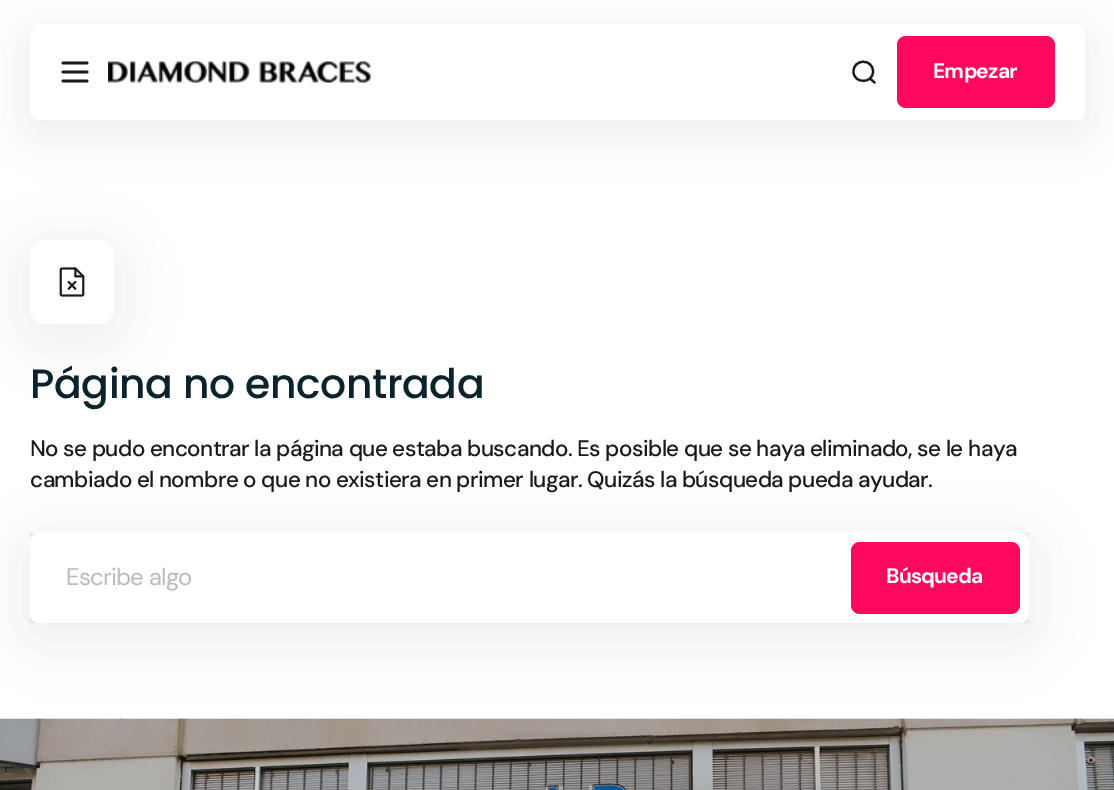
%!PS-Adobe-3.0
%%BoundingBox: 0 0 1114 790
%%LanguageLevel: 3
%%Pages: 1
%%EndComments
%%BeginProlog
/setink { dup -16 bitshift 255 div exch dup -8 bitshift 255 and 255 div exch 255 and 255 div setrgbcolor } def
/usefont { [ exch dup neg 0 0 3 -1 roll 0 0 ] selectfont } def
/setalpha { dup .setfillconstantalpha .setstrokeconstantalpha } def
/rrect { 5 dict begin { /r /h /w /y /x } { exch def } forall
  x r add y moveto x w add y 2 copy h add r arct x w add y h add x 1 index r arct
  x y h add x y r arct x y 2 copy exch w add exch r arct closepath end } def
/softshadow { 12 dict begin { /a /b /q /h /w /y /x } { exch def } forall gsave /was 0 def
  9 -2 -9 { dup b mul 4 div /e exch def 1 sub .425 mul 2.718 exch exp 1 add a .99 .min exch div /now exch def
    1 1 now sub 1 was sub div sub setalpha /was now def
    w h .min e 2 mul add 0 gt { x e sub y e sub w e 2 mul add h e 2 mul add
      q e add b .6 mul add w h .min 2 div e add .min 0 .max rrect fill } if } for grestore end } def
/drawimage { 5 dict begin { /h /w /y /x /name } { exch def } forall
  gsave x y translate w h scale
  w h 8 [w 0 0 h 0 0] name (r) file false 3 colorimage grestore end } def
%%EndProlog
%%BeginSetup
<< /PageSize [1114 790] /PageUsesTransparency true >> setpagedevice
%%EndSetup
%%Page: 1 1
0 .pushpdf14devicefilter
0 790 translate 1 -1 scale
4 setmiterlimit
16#FFFFFF setink
0 0 1114 790 rectfill
16#1A1A1C setink
30 36 1055 96 9 22.5 0.08 softshadow
16#FFFFFF setink
30 24 1055 96 9 rrect fill
16#1A1A1C setink
2.7 setlinewidth
1 setlinecap
63 63 moveto 87 63 lineto 63 72 moveto 87 72 lineto 63 81 moveto 87 81 lineto stroke
(img1.raw) 108 61 263 22 drawimage
2.2 setlinewidth
870 78.5 moveto 874.5 82.5 lineto 873 71.5 moveto 873 84 853.5 84 853.5 71.5 curveto 853.5 58.5 873 58.5 873 71.5 curveto closepath stroke
16#FF0860 setink
897 36 158 72 9 rrect fill
/DMSans-Bold 21 usefont
16#FFFFFF setink
933 78 moveto -0.75 0 (Empezar) ashow
16#1A1A1C setink
30 252 84 84 15 30 0.08 softshadow
16#FFFFFF setink
30 240 84 84 15 rrect fill
(img2.raw) 59 267 26 30 drawimage
/Poppins-Medium 40.9 usefont
16#0D232B setink
30 398 moveto -0.4 0 (Página no encontrada) ashow
/DMSans-Medium 22.45 usefont
16#1A1A1C setink
30 456 moveto -0.58 0 (No se pudo encontrar la página que estaba buscando. Es posible que se haya eliminado, se le haya) ashow
30 487 moveto -0.58 0 (cambiado el nombre o que no existiera en primer lugar. Quizás la búsqueda pueda ayudar.) ashow
16#F0EFEF setink
30 533 999 90 rectfill
(img3.raw) 0 718 1114 72 drawimage
16#011624 setink
30 545 999 90 9 30 0.08 softshadow
16#FFFFFF setink
30 533 999 90 9 rrect fill
/DMSans-Regular 24 usefont
16#BBBABA setink
66 585 moveto -0.75 0 (Escribe algo) ashow
16#FF0860 setink
851 542 169 72 9 rrect fill
/DMSans-Bold 21 usefont
16#FFFFFF setink
886 583 moveto -0.75 0 (Búsqueda) ashow
.poppdf14devicefilter showpage
%%EOF
